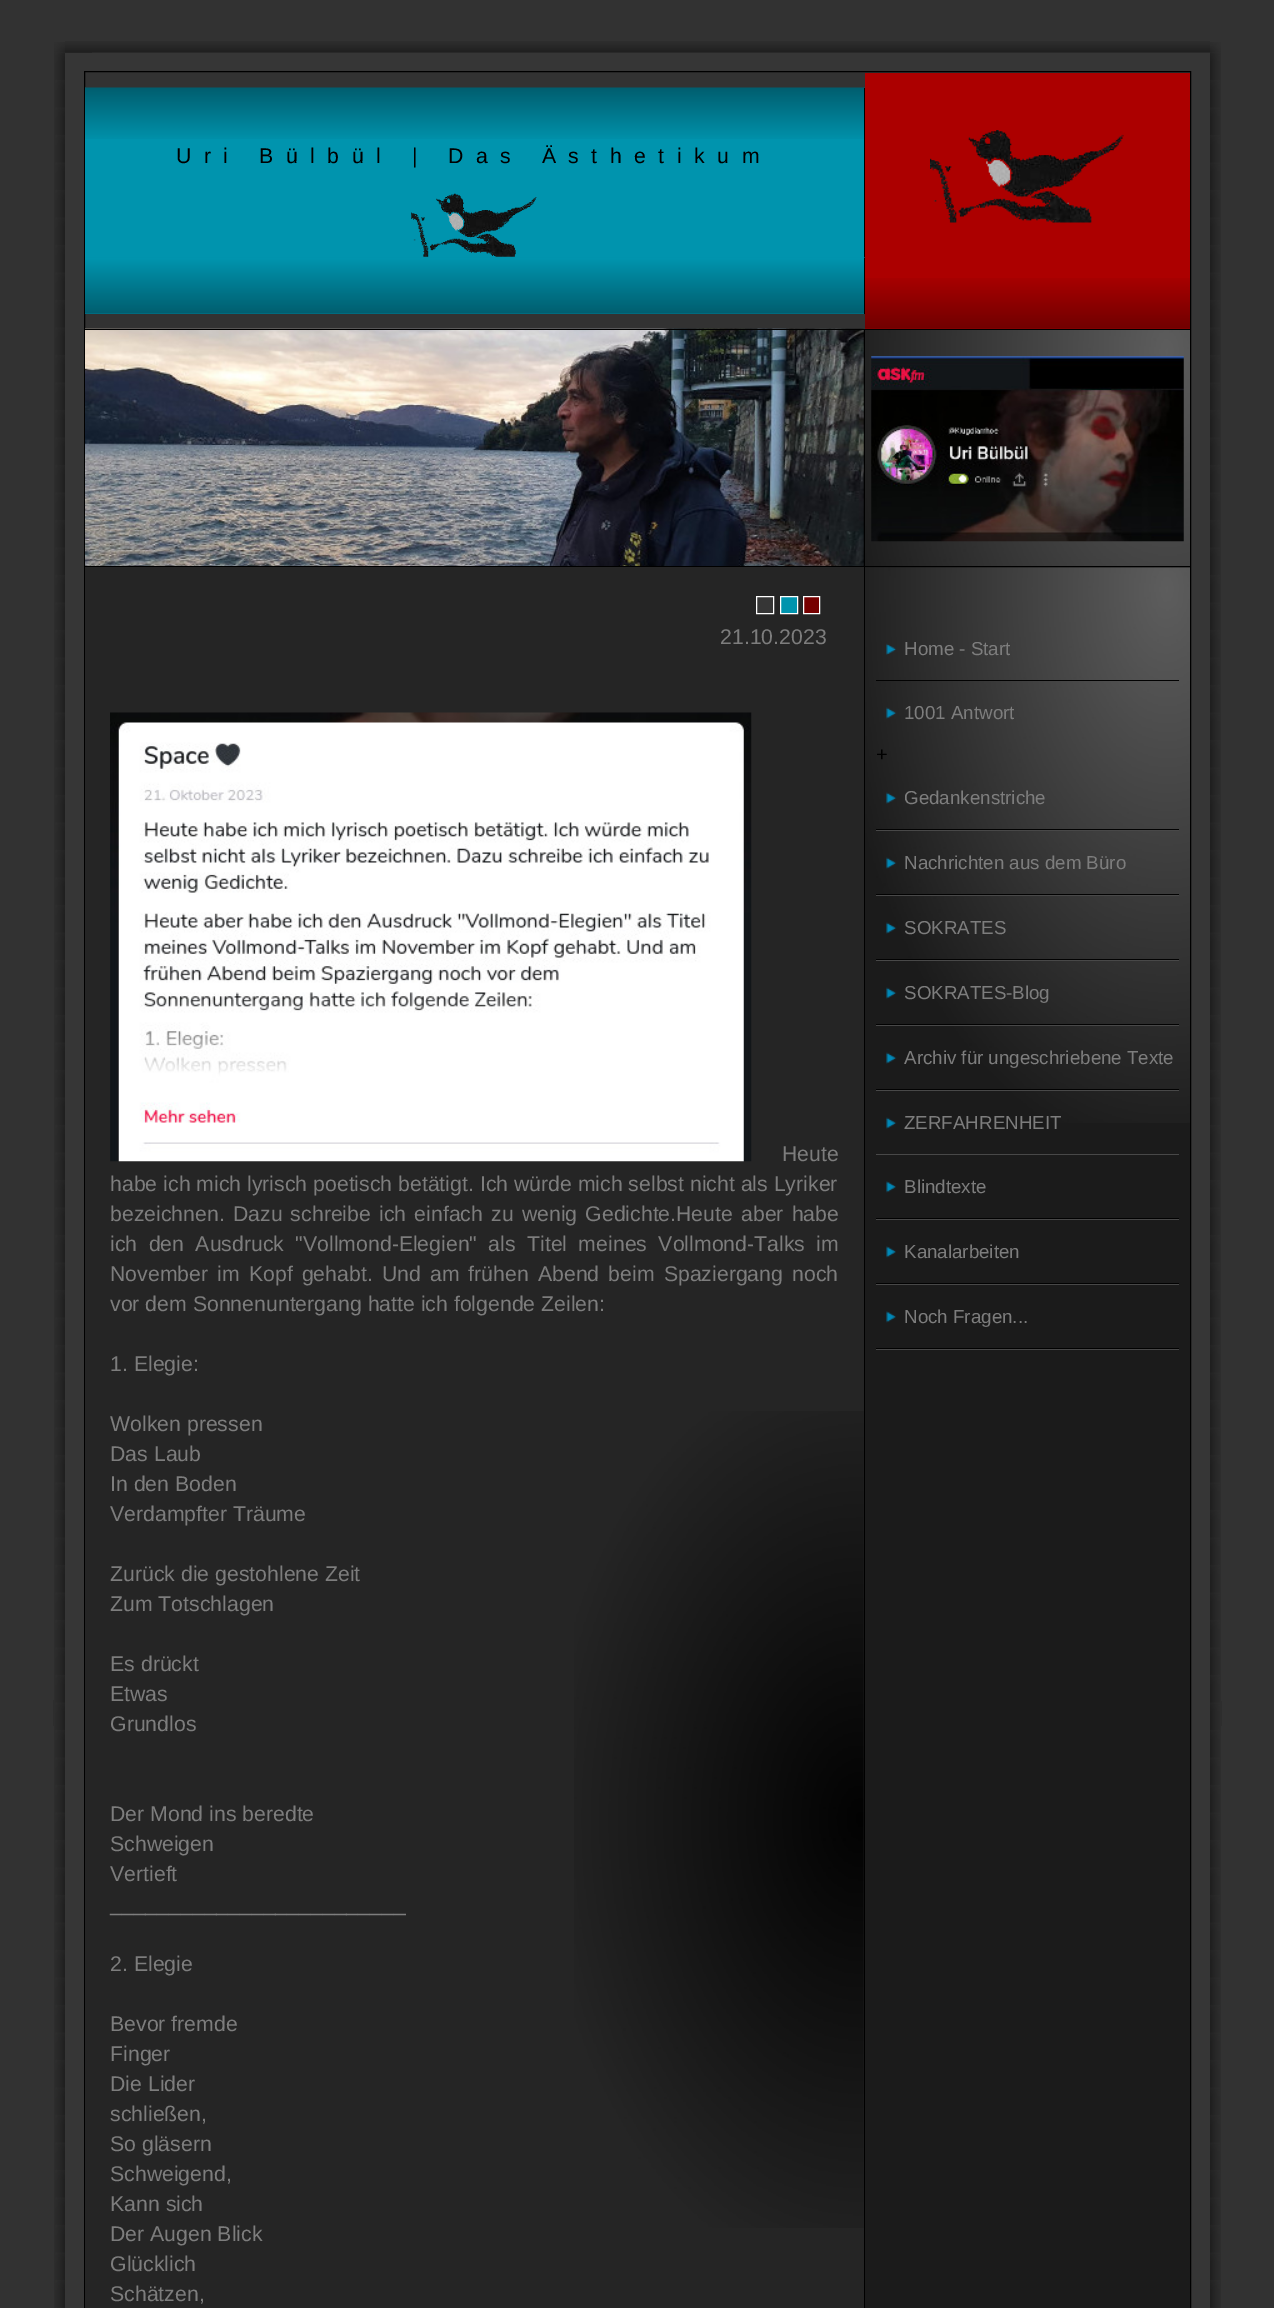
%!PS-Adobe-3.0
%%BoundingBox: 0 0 1274 2308
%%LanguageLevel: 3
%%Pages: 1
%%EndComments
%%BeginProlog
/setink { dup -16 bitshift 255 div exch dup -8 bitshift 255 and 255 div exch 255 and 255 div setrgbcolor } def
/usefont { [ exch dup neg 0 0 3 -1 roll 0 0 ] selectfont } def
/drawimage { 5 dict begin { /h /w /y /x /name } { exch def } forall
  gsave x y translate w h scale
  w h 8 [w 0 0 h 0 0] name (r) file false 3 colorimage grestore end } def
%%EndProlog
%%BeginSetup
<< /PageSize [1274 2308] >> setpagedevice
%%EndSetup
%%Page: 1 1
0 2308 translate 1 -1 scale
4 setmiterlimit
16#323232 setink
0 0 1274 2308 rectfill
(img1.raw) 54 42 11 11 drawimage
(img2.raw) 65 41 1145 12 drawimage
16#232323 setink
65 52 27 1 rectfill
(img3.raw) 1210 42 11 11 drawimage
(img4.raw) 54 52 11 2256 drawimage
16#2D2D2D setink
53 1700 1 26 rectfill
16#363636 setink
19 setlinewidth
74.5 62.5 1126 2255 rectstroke
16#000000 setink
1 setlinewidth
84.5 71.5 1106 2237 rectstroke
16#0094AE setink
85 139 779 119 rectfill
(img5.raw) 85 87 780 52 drawimage
16#000000 setink
864 88 1 170 rectfill
/LiberationSans-Regular 21.25 usefont
176 163 moveto 12.5 0 (Uri Bülbül | Das Ästhetikum) ashow
(img6.raw) 411 193 126 64 drawimage
(img7.raw) 85 257 780 57 drawimage
864 258 1 56 rectfill
16#AC0000 setink
865 73 325 256 rectfill
(img8.raw) 930 130 194 93 drawimage
(img9.raw) 865 278 325 51 drawimage
(img10.raw) 85 328 779 238 drawimage
16#000000 setink
85 329 1105 1 rectfill
864 329 1 237 rectfill
(img11.raw) 865 330 325 236 drawimage
(img12.raw) 871 356 313 186 drawimage
16#252525 setink
85 567 779 1741 rectfill
(img13.raw) 574 1411 290 817 drawimage
16#000000 setink
85 566 1105 1 rectfill
864 566 1 1742 rectfill
16#363636 setink
756.5 596.5 moveto 773.5 596.5 lineto 773.5 613.5 lineto 756.5 613.5 lineto closepath gsave fill grestore
16#FFFFFF setink
stroke
16#0094AE setink
780.5 596.5 moveto 797.5 596.5 lineto 797.5 613.5 lineto 780.5 613.5 lineto closepath gsave fill grestore
16#FFFFFF setink
stroke
16#770000 setink
803.5 596.5 moveto 819.5 596.5 lineto 819.5 613.5 lineto 803.5 613.5 lineto closepath gsave fill grestore
16#FFFFFF setink
stroke
16#7D7D7D setink
720 644 moveto (21.10.2023) show
(img14.raw) 110 712 642 450 drawimage
782 1161 moveto (Heute) show
110 1191 moveto (habe ich mich lyrisch poetisch betätigt. Ich würde mich selbst nicht als Lyriker) show
110 1221 moveto 2.25 0 32 (bezeichnen. Dazu schreibe ich einfach zu wenig Gedichte.Heute aber habe) widthshow
110 1251 moveto 5.5 0 32 (ich den Ausdruck "Vollmond-Elegien" als Titel meines Vollmond-Talks im) widthshow
110 1281 moveto 3.25 0 32 (November im Kopf gehabt. Und am frühen Abend beim Spaziergang noch) widthshow
[
    [(vor dem Sonnenuntergang hatte ich folgende Zeilen:) 110 1311]
    [(1. Elegie:) 110 1371]
    [(Wolken pressen) 110 1431]
    [(Das Laub) 110 1461]
    [(In den Boden) 110 1491]
    [(Verdampfter Träume) 110 1521]
    [(Zurück die gestohlene Zeit) 110 1581]
    [(Zum Totschlagen) 110 1611]
    [(Es drückt) 110 1671]
    [(Etwas) 110 1701]
    [(Grundlos) 110 1731]
    [(Der Mond ins beredte) 110 1821]
    [(Schweigen) 110 1851]
    [(Vertieft) 110 1881]
    [(_________________________) 110 1911]
    [(2. Elegie) 110 1971]
    [(Bevor fremde) 110 2031]
    [(Finger) 110 2061]
    [(Die Lider) 110 2091]
    [(schließen,) 110 2121]
    [(So gläsern) 110 2151]
    [(Schweigend,) 110 2181]
    [(Kann sich) 110 2211]
    [(Der Augen Blick) 110 2241]
    [(Glücklich) 110 2271]
    [(Schätzen,) 110 2301]
] { aload pop moveto show } forall
16#1B1B1B setink
865 567 325 1741 rectfill
(img15.raw) 865 567 325 556 drawimage
(img16.raw) 886 643 11 12 drawimage
/LiberationSans-Regular 18.75 usefont
16#7D7D7D setink
904 655 moveto (Home - Start) show
16#020202 setink
876 680 303 1 rectfill
(img17.raw) 886 707 11 12 drawimage
16#7D7D7D setink
904 719 moveto (1001 Antwort) show
/LiberationSans-Regular 20 usefont
16#000000 setink
876 761 moveto (+) show
(img18.raw) 886 792 11 12 drawimage
/LiberationSans-Regular 18.75 usefont
16#7D7D7D setink
904 804 moveto (Gedankenstriche) show
16#020202 setink
876 829 303 1 rectfill
16#484848 setink
876 830 303 1 rectfill
(img19.raw) 886 857 11 12 drawimage
16#7D7D7D setink
904 869 moveto (Nachrichten aus dem Büro) show
16#020202 setink
876 894 303 1 rectfill
16#484848 setink
876 895 303 1 rectfill
(img20.raw) 886 922 11 12 drawimage
16#7D7D7D setink
904 934 moveto (SOKRATES) show
16#020202 setink
876 959 303 1 rectfill
16#484848 setink
876 960 303 1 rectfill
(img20.raw) 886 987 11 12 drawimage
16#7D7D7D setink
904 999 moveto (SOKRATES-Blog) show
16#020202 setink
876 1024 303 1 rectfill
16#484848 setink
876 1025 303 1 rectfill
(img20.raw) 886 1052 11 12 drawimage
16#7D7D7D setink
904 1064 moveto (Archiv für ungeschriebene Texte) show
16#020202 setink
876 1089 303 1 rectfill
16#484848 setink
876 1090 303 1 rectfill
(img20.raw) 886 1117 11 12 drawimage
16#7D7D7D setink
904 1129 moveto (ZERFAHRENHEIT) show
16#484848 setink
876 1154 303 1 rectfill
(img21.raw) 886 1181 10 12 drawimage
16#7D7D7D setink
904 1193 moveto (Blindtexte) show
16#020202 setink
876 1218 303 1 rectfill
16#484848 setink
876 1219 303 1 rectfill
(img21.raw) 886 1246 10 12 drawimage
16#7D7D7D setink
904 1258 moveto (Kanalarbeiten) show
16#020202 setink
876 1283 303 1 rectfill
16#484848 setink
876 1284 303 1 rectfill
(img21.raw) 886 1311 10 12 drawimage
16#7D7D7D setink
904 1323 moveto (Noch Fragen...) show
16#020202 setink
876 1348 303 1 rectfill
16#484848 setink
876 1349 303 1 rectfill
(img22.raw) 1210 52 11 2256 drawimage
16#2D2D2D setink
1221 1701 1 25 rectfill
showpage
%%EOF
